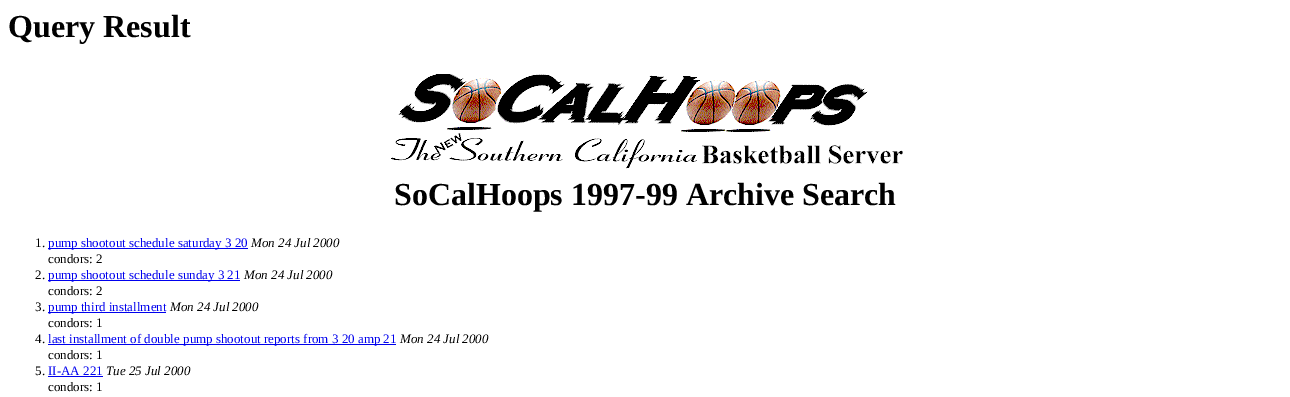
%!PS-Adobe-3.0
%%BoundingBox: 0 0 1290 397
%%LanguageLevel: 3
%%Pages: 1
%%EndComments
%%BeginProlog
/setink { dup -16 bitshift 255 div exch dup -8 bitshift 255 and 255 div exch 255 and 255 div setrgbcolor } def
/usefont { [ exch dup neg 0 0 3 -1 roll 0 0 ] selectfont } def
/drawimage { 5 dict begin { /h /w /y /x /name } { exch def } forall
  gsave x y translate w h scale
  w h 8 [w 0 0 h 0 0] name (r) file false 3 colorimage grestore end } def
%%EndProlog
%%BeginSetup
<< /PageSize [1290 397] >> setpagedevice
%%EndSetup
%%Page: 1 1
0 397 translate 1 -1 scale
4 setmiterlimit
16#FFFFFF setink
0 0 1290 397 rectfill
/LiberationSerif-Bold 32 usefont
16#000000 setink
8 37 moveto (Query Result) show
(img1.raw) 391 74 512 95 drawimage
394 205 moveto (SoCalHoops 1997-99 Archive Search) show
/LiberationSerif-Regular 13 usefont
35 247 moveto (1.) show
16#0000EE setink
48 248 200 1 rectfill
48 247 moveto (pump shootout schedule saturday 3 20) show
/LiberationSerif-Italic 13 usefont
16#000000 setink
251 247 moveto (Mon 24 Jul 2000) show
/LiberationSerif-Regular 13 usefont
48 263 moveto (condors: 2) show
35 279 moveto (2.) show
16#0000EE setink
48 280 192 1 rectfill
48 279 moveto (pump shootout schedule sunday 3 21) show
/LiberationSerif-Italic 13 usefont
16#000000 setink
244 279 moveto (Mon 24 Jul 2000) show
/LiberationSerif-Regular 13 usefont
48 295 moveto (condors: 2) show
35 311 moveto (3.) show
16#0000EE setink
48 312 118 1 rectfill
48 311 moveto (pump third installment) show
/LiberationSerif-Italic 13 usefont
16#000000 setink
170 311 moveto (Mon 24 Jul 2000) show
/LiberationSerif-Regular 13 usefont
48 327 moveto (condors: 1) show
35 343 moveto (4.) show
16#0000EE setink
48 344 348 1 rectfill
48 343 moveto (last installment of double pump shootout reports from 3 20 amp 21) show
/LiberationSerif-Italic 13 usefont
16#000000 setink
400 343 moveto (Mon 24 Jul 2000) show
/LiberationSerif-Regular 13 usefont
48 359 moveto (condors: 1) show
35 375 moveto (5.) show
16#0000EE setink
48 375 moveto (II-AA 221) show
48 376 55 1 rectfill
/LiberationSerif-Italic 13 usefont
16#000000 setink
106 375 moveto (Tue 25 Jul 2000) show
/LiberationSerif-Regular 13 usefont
48 391 moveto (condors: 1) show
showpage
%%EOF
